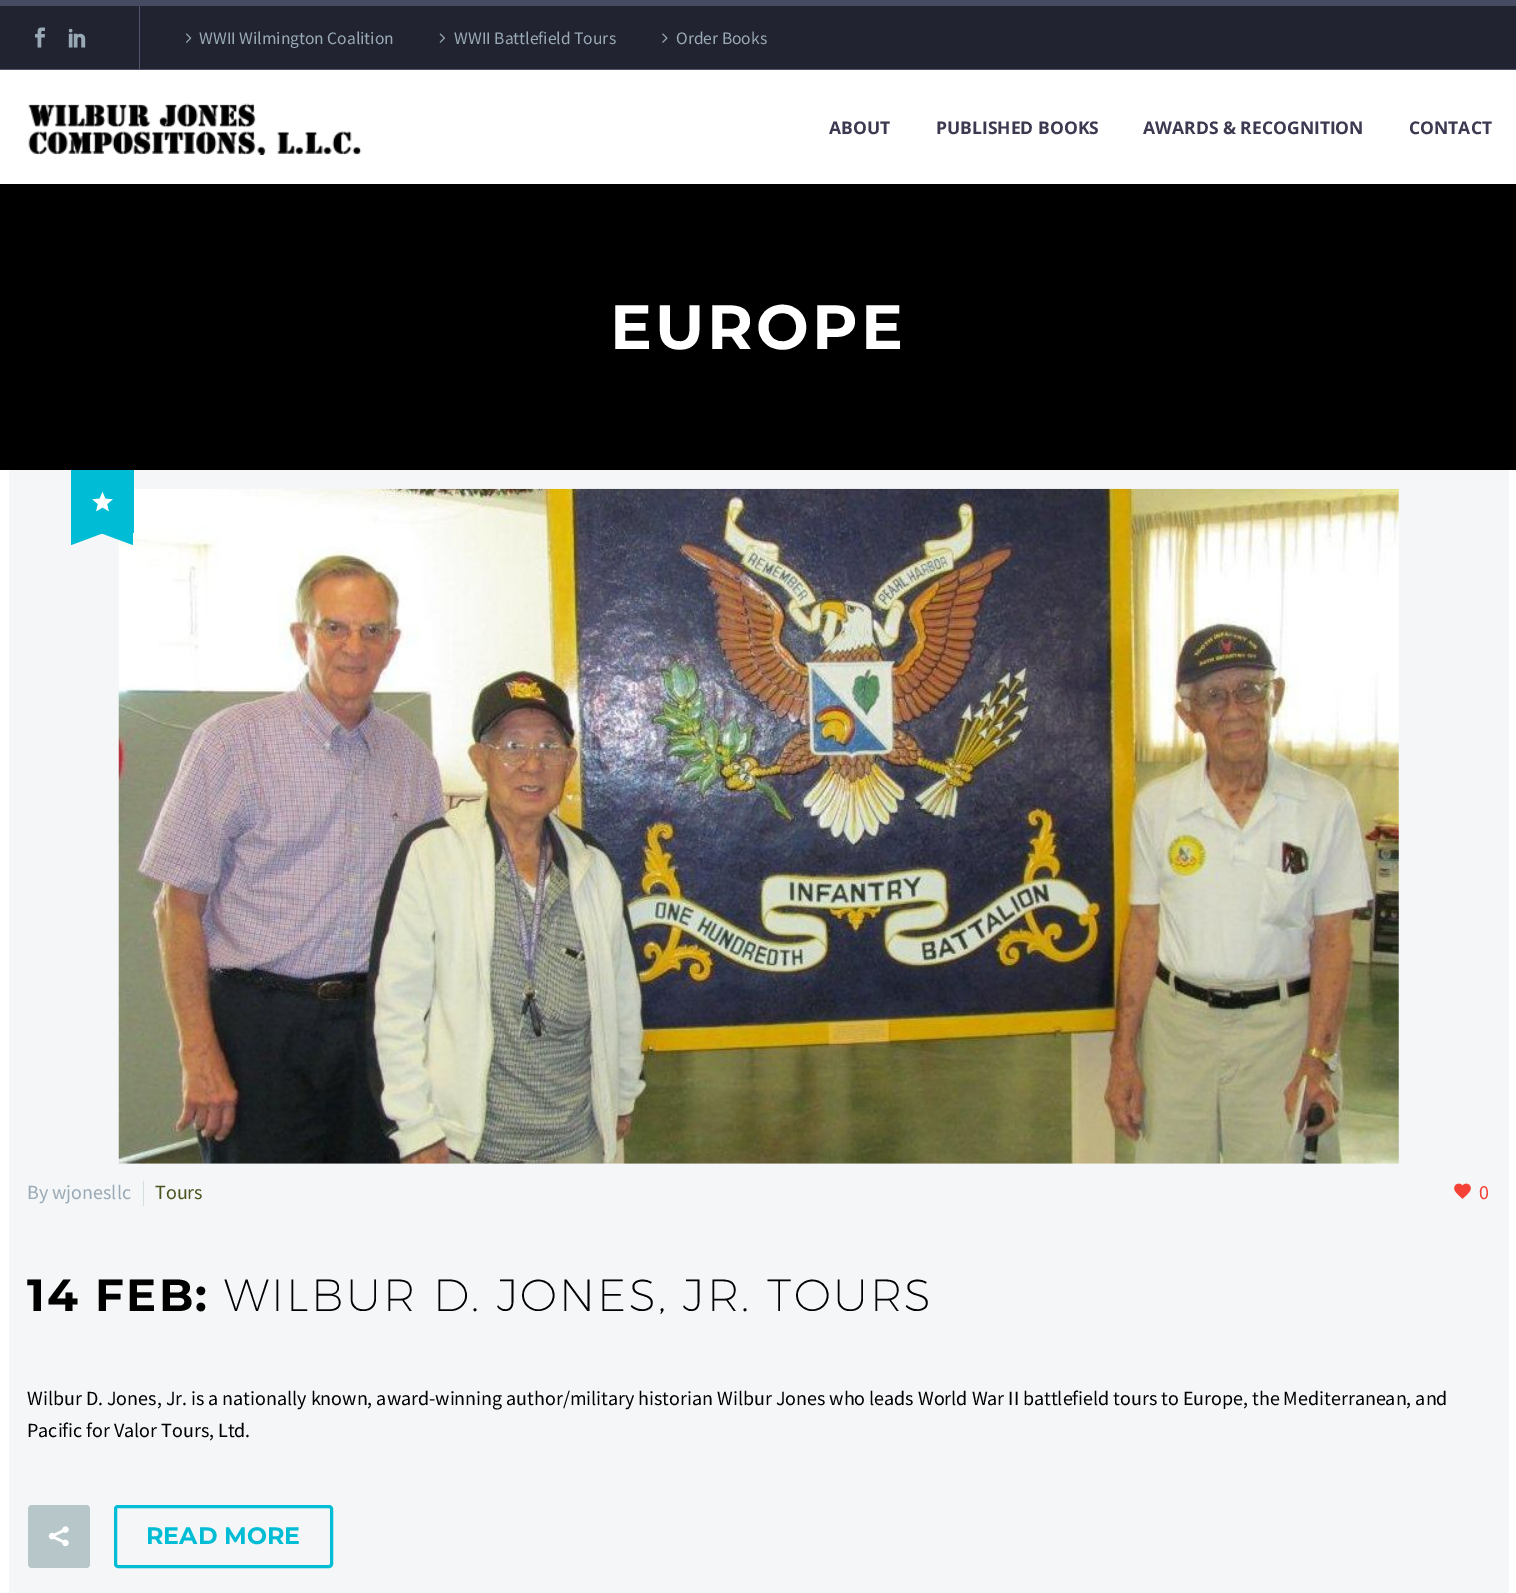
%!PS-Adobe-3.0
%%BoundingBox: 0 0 1516 1593
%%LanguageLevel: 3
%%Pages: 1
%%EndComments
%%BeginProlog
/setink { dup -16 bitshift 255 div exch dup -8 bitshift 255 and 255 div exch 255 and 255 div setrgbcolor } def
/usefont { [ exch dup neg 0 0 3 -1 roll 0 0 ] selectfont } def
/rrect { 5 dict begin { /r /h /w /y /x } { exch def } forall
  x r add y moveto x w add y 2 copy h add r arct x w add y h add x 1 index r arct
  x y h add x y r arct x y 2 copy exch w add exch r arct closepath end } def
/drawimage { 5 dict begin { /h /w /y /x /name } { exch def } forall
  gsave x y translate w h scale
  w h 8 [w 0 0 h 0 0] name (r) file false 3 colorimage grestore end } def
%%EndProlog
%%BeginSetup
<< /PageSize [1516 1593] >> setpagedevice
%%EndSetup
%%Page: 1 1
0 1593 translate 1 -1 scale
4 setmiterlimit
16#FFFFFF setink
0 0 1516 1593 rectfill
[
    [0 6 1516 63 16#212331]
    [0 0 1516 6 16#474B61]
    [0 69 1516 1 16#51546C]
] { aload pop setink rectfill } forall
(img1.raw) 35 27 10 21 drawimage
(img2.raw) 68 28 18 20 drawimage
139 6 1 63 rectfill
(img3.raw) 186 33 6 10 drawimage
/SourceSansPro-Regular 17.5 usefont
16#99A9B5 setink
199 44 moveto (WWII Wilmington Coalition) show
(img4.raw) 439 33 6 10 drawimage
454 44 moveto (WWII Battlefield Tours) show
(img5.raw) 662 33 6 10 drawimage
676 44 moveto (Order Books) show
(img6.raw) 28 103 334 52 drawimage
/OpenSans-Bold 17.5 usefont
16#3C3950 setink
[
    [(ABOUT) 829 134]
    [(PUBLISHED BOOKS) 936 134]
    [(AWARDS & RECOGNITION) 1143 134]
    [(CONTACT) 1409 134]
] { aload pop moveto show } forall
16#000000 setink
0 184 1516 286 rectfill
/Montserrat-Bold 62.5 usefont
16#FFFFFF setink
610 349 moveto 3 0 (EUROPE) ashow
16#F4F6F7 setink
9 470 1500 1123 rectfill
(img8.raw) 118 488 1281 676 drawimage
16#00BCD4 setink
71 470 63 63 rectfill
71 532 moveto 133 510 lineto 133 522 lineto 71 545 lineto closepath fill
71 510 moveto 133 532 lineto 133 545 lineto 71 522 lineto closepath fill
(img7.raw) 92 491 21 21 drawimage
/SourceSansPro-Regular 20 usefont
16#99A9B5 setink
27 1199 moveto (By wjonesllc) show
16#D4DEE1 setink
143 1181 1 25 rectfill
16#4B5320 setink
155 1199 moveto (Tours) show
(img9.raw) 1454 1183 17 16 drawimage
16#F44336 setink
1479 1199 moveto (0) show
/Montserrat-Bold 45 usefont
16#000000 setink
27 1311 moveto 2.25 0 (14 FEB:) ashow
/Montserrat-ExtraLight 45 usefont
224 1311 moveto 2.25 0 (WILBUR D. JONES, JR. TOURS) ashow
/SourceSansPro-Regular 20 usefont
27 1405 moveto (Wilbur D. Jones, Jr. is a nationally known, award-winning author/military historian Wilbur Jones who leads World War II battlefield tours to Europe, the Mediterranean, and) show
27 1437 moveto (Pacific for Valor Tours, Ltd.) show
16#B6C6C9 setink
28 1505 62 63 4 rrect fill
(img10.raw) 48 1526 21 21 drawimage
16#00BCD4 setink
3 setlinewidth
115.5 1506.5 216 60 2.5 rrect stroke
/Montserrat-Bold 23.75 usefont
146 1544 moveto (READ MORE) show
showpage
%%EOF
